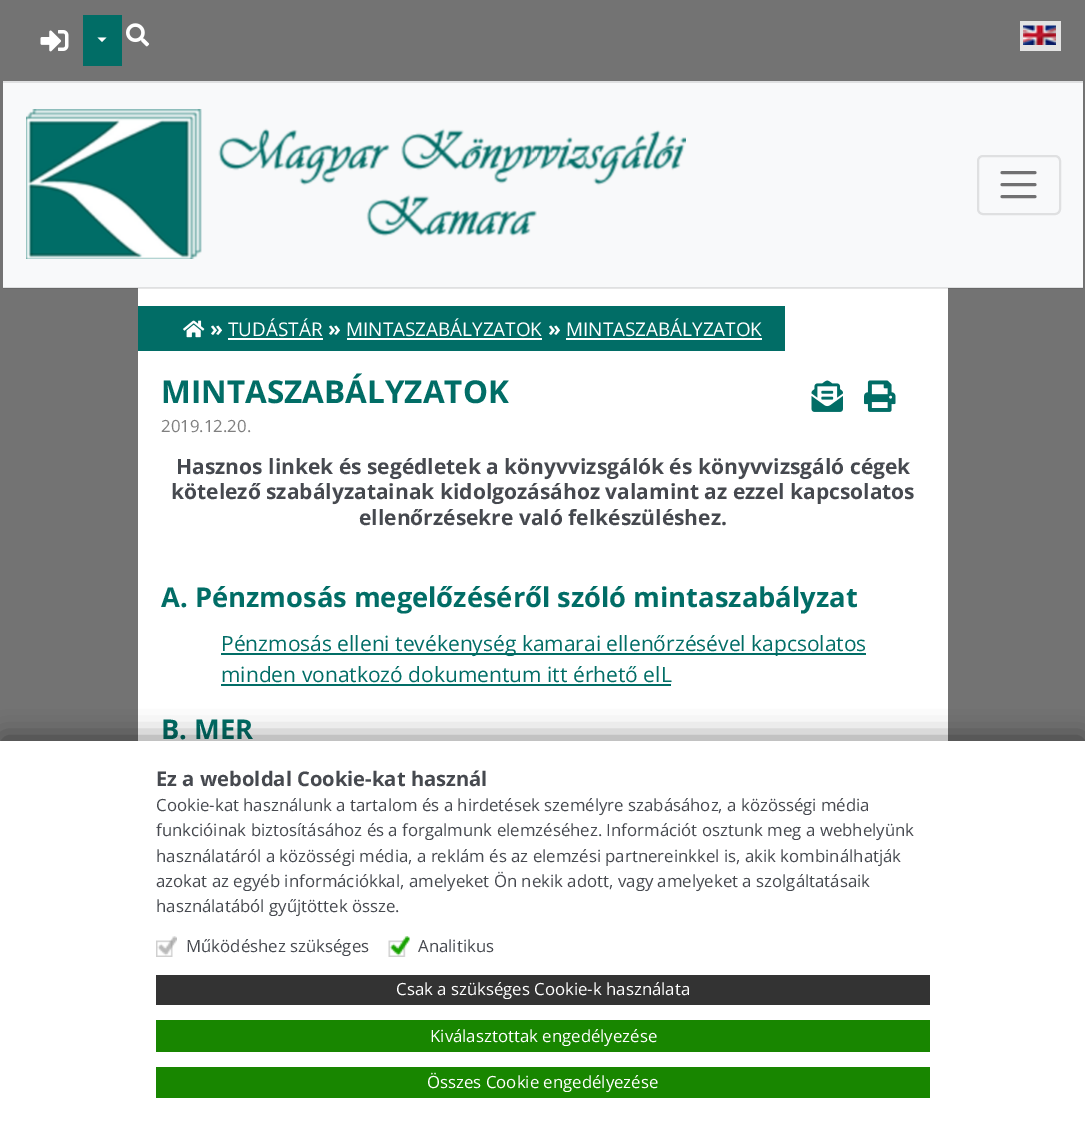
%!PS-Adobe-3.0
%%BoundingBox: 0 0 1085 1128
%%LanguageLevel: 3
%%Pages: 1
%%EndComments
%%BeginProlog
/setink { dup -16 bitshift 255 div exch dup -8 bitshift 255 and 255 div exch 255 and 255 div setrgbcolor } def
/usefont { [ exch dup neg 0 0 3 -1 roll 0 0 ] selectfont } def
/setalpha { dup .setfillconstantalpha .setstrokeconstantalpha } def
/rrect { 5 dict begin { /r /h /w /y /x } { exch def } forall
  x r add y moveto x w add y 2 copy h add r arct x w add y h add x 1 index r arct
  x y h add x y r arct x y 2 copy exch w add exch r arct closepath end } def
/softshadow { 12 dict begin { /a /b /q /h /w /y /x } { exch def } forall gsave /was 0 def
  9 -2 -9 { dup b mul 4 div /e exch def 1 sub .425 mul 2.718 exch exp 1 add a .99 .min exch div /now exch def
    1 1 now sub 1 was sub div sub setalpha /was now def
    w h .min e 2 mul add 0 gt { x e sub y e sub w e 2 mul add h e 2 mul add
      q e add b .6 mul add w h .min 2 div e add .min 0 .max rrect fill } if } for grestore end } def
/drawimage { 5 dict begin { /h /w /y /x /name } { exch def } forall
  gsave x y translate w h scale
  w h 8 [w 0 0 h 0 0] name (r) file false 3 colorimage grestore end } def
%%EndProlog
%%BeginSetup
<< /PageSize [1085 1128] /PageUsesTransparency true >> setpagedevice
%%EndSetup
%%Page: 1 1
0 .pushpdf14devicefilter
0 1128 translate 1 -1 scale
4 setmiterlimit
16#737373 setink
0 0 1085 1128 rectfill
[
    [3 288 1080 1 16#686868]
    [138 289 810 452 16#FFFFFF]
    [138 288 810 1 16#E6E6E6]
] { aload pop setink rectfill } forall
(img1.raw) 40 30 29 22 drawimage
16#016D66 setink
83 15 39 51 rectfill
16#FFFFFF setink
97.5 37.5 moveto 106.5 37.5 lineto 102 42 lineto closepath fill
(img2.raw) 126 23 24 24 drawimage
16#E3E3E3 setink
1020 21 41 30 rectfill
(img3.raw) 1023 25 33 20 drawimage
[
    [3 83 1080 204 16#F8F9FA]
    [3 287 1080 1 16#DFE0E1]
    [3 81 1080 2 16#DFE0E1]
] { aload pop setink rectfill } forall
(img4.raw) 26 109 660 150 drawimage
2 setlinewidth
978 156 82 58 5 rrect stroke
16#707071 setink
3 setlinewidth
1 setlinecap
1002 172.5 moveto 1035 172.5 lineto 1002 184.5 moveto 1035 184.5 lineto 1002 196.5 moveto 1035 196.5 lineto stroke
16#016D66 setink
138 306 647 45 rectfill
(img5.raw) 183 320 22 18 drawimage
/OpenSans-Bold 21 usefont
16#FFFFFF setink
210 336 moveto (») show
/OpenSans-Regular 18.9 usefont
228 336 moveto (TUDÁSTÁR) show
228 338 95 2 rectfill
/OpenSans-Bold 21 usefont
328 336 moveto (») show
/OpenSans-Regular 18.9 usefont
346 336 moveto (MINTASZABÁLYZATOK) show
347 338 195 2 rectfill
/OpenSans-Bold 21 usefont
548 336 moveto (») show
/OpenSans-Regular 18.9 usefont
566 336 moveto (MINTASZABÁLYZATOK) show
566 338 196 2 rectfill
/OpenSans-Bold 31.5 usefont
16#016D66 setink
161 403 moveto (MINTASZABÁLYZATOK) show
(img6.raw) 811 380 32 32 drawimage
(img7.raw) 864 380 32 32 drawimage
/OpenSans-Regular 16.8 usefont
16#808080 setink
161 432 moveto (2019.12.20.) show
/OpenSans-Bold 21 usefont
16#46494F setink
[
    [(Hasznos linkek és segédletek a könyvvizsgálók és könyvvizsgáló cégek) 176 474]
    [(kötelező szabályzatainak kidolgozásához valamint az ezzel kapcsolatos) 171 499]
    [(ellenőrzésekre való felkészüléshez.) 359 525]
] { aload pop moveto show } forall
/OpenSans-Bold 27.3 usefont
16#016D66 setink
161 607 moveto (A. Pénzmosás megelőzéséről szóló mintaszabályzat) show
221 653 645 2 rectfill
/OpenSans-Regular 21 usefont
221 651 moveto (Pénzmosás elleni tevékenység kamarai ellenőrzésével kapcsolatos) show
221 682 moveto (minden vonatkozó dokumentum itt érhető elL) show
221 684 450 2 rectfill
/OpenSans-Bold 27.3 usefont
161 739 moveto (B. MER) show
16#000000 setink
3 738 1080 381 0 13 0.47 softshadow
16#FFFFFF setink
0 741 1085 387 rectfill
/OpenSans-Bold 20.2 usefont
16#46494F setink
156 786 moveto (Ez a weboldal Cookie-kat használ) show
/OpenSans-Regular 16.8 usefont
[
    [(Cookie-kat használunk a tartalom és a hirdetések személyre szabásához, a közösségi média) 156 811]
    [(funkcióinak biztosításához és a forgalmunk elemzéséhez. Információt osztunk meg a webhelyünk) 156 836]
    [(használatáról a közösségi média, a reklám és az elemzési partnereinkkel is, akik kombinálhatják) 156 862]
    [(azokat az egyéb információkkal, amelyeket Ön nekik adott, vagy amelyeket a szolgáltatásaik) 156 887]
    [(használatából gyűjtöttek össze.) 156 912]
] { aload pop moveto show } forall
(img8.raw) 156 936 21 21 drawimage
186 952 moveto (Működéshez szükséges) show
(img9.raw) 388 936 22 21 drawimage
418 952 moveto (Analitikus) show
16#333333 setink
156 975 774 30 rectfill
16#FFFFFF setink
396 995 moveto (Csak a szükséges Cookie-k használata) show
16#188600 setink
156 1020 774 32 rectfill
16#FFFFFF setink
430 1042 moveto (Kiválasztottak engedélyezése) show
16#188600 setink
156 1067 774 31 rectfill
16#FFFFFF setink
427 1088 moveto (Összes Cookie engedélyezése) show
.poppdf14devicefilter showpage
%%EOF
